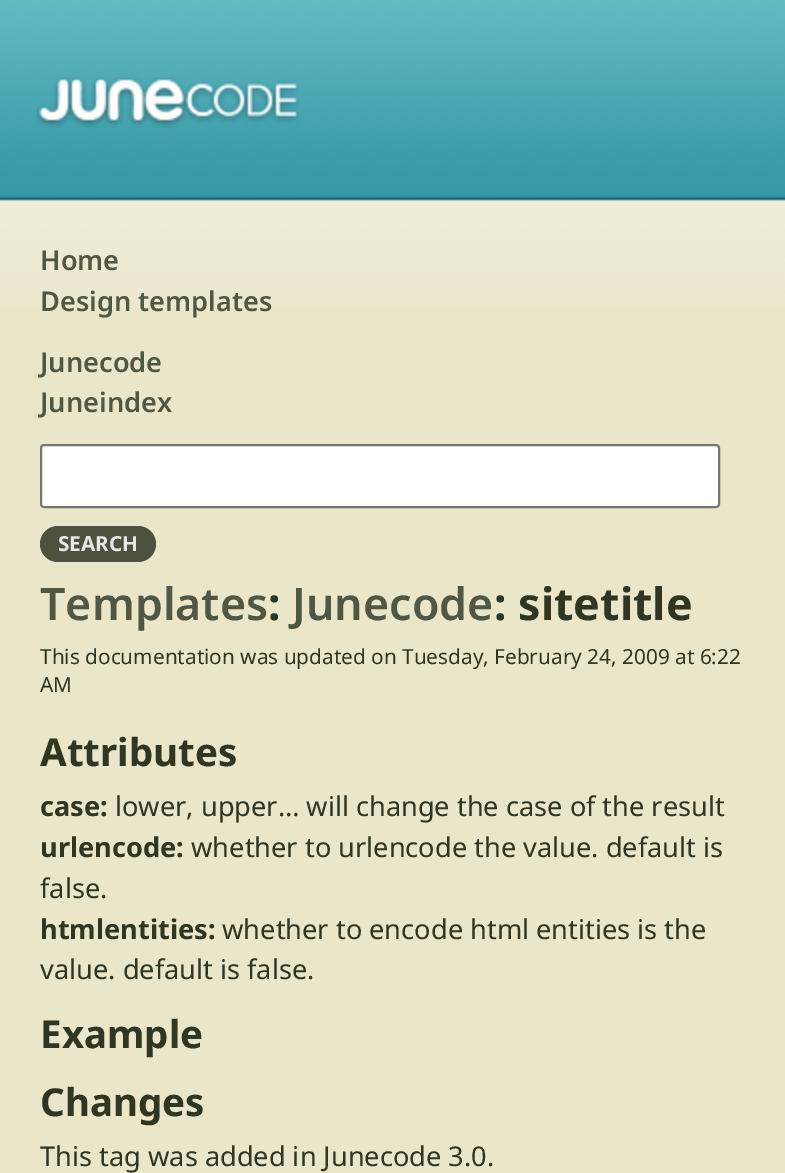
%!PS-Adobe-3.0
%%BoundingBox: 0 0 785 1173
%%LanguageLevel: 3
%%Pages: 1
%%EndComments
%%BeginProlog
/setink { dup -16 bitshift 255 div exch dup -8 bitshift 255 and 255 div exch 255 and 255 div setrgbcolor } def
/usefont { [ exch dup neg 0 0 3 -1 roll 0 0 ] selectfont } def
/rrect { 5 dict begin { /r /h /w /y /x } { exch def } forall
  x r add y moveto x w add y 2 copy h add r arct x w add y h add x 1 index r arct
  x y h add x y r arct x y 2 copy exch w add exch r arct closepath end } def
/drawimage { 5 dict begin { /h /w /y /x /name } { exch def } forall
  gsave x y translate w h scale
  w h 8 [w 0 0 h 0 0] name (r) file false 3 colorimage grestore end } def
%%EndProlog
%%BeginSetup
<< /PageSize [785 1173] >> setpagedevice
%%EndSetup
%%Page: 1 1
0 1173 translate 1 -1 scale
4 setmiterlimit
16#E9E6C9 setink
0 0 785 1173 rectfill
(img1.raw) 0 0 785 308 drawimage
(img2.raw) 36 77 263 51 drawimage
/NotoSans-SemiBold 27.2 usefont
16#515741 setink
[
    [(Home) 40 270]
    [(Design templates) 40 311]
    [(Junecode) 40 372]
    [(Juneindex) 40 412]
] { aload pop moveto show } forall
16#FFFFFF setink
41 445 678 62 3 rrect gsave fill grestore
16#767676 setink
2 setlinewidth
stroke
16#4D513D setink
40 526 116 36 18 rrect fill
/NotoSans-Bold 20.8 usefont
16#E7E7E5 setink
58 551 moveto (SEARCH) show
/NotoSans-SemiBold 44.75 usefont
16#515741 setink
40 620 moveto (Templates) show
/NotoSans-Bold 44.75 usefont
16#303620 setink
268 620 moveto (:) show
/NotoSans-SemiBold 44.75 usefont
16#515741 setink
292 620 moveto (Junecode) show
/NotoSans-Bold 44.75 usefont
16#303620 setink
494 620 moveto (: sitetitle) show
/NotoSans-Regular 20.8 usefont
40 664 moveto (This documentation was updated on Tuesday, February 24, 2009 at 6:22) show
40 692 moveto (AM) show
/NotoSans-Bold 38.5 usefont
40 766 moveto (Attributes) show
/NotoSans-Bold 27.2 usefont
40 816 moveto (case:) show
/NotoSans-Regular 27.2 usefont
115 816 moveto (lower, upper… will change the case of the result) show
/NotoSans-Bold 27.2 usefont
40 857 moveto (urlencode:) show
/NotoSans-Regular 27.2 usefont
191 857 moveto (whether to urlencode the value. default is) show
40 898 moveto (false.) show
/NotoSans-Bold 27.2 usefont
40 939 moveto (htmlentities:) show
/NotoSans-Regular 27.2 usefont
222 939 moveto (whether to encode html entities is the) show
40 979 moveto (value. default is false.) show
/NotoSans-Bold 38.5 usefont
40 1048 moveto (Example) show
40 1116 moveto (Changes) show
/NotoSans-Regular 27.2 usefont
40 1166 moveto (This tag was added in Junecode 3.0.) show
showpage
%%EOF
